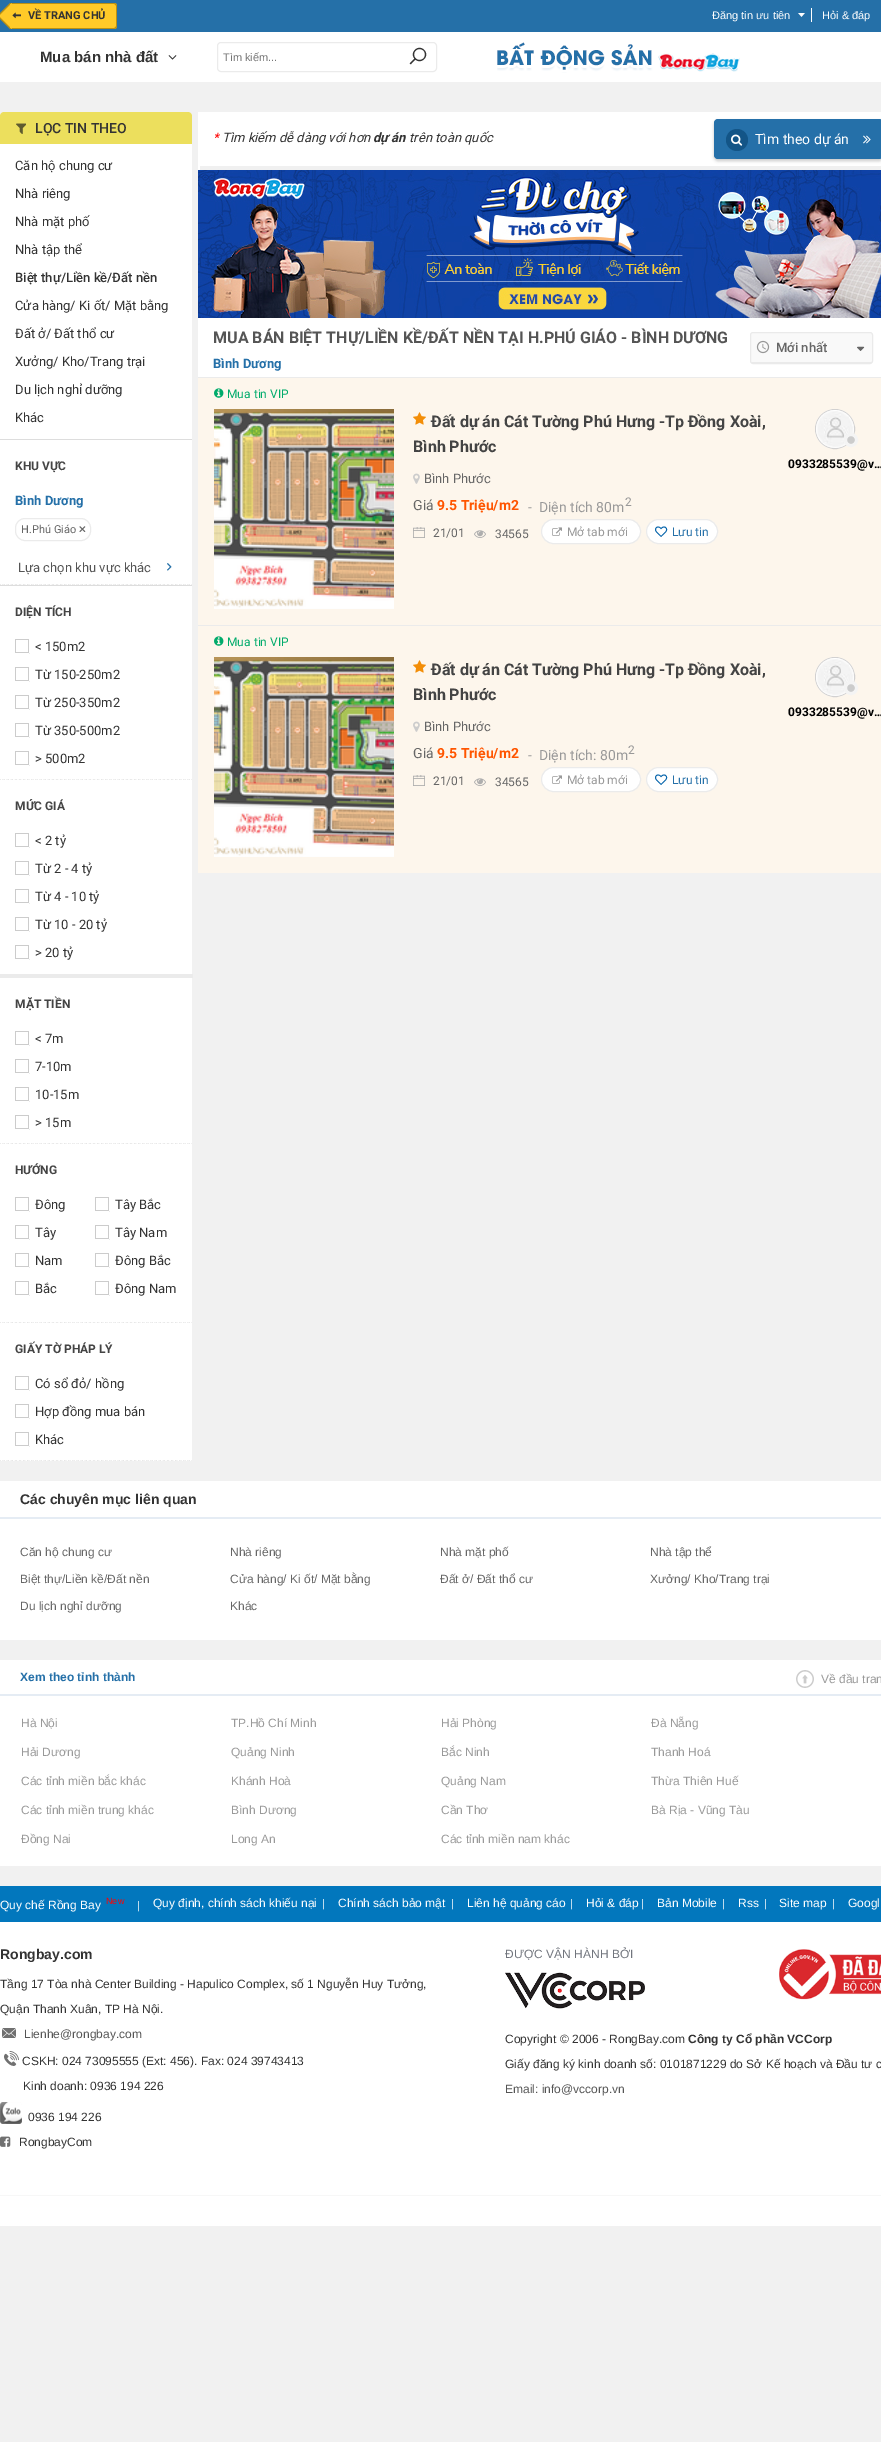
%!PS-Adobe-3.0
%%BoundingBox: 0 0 881 2442
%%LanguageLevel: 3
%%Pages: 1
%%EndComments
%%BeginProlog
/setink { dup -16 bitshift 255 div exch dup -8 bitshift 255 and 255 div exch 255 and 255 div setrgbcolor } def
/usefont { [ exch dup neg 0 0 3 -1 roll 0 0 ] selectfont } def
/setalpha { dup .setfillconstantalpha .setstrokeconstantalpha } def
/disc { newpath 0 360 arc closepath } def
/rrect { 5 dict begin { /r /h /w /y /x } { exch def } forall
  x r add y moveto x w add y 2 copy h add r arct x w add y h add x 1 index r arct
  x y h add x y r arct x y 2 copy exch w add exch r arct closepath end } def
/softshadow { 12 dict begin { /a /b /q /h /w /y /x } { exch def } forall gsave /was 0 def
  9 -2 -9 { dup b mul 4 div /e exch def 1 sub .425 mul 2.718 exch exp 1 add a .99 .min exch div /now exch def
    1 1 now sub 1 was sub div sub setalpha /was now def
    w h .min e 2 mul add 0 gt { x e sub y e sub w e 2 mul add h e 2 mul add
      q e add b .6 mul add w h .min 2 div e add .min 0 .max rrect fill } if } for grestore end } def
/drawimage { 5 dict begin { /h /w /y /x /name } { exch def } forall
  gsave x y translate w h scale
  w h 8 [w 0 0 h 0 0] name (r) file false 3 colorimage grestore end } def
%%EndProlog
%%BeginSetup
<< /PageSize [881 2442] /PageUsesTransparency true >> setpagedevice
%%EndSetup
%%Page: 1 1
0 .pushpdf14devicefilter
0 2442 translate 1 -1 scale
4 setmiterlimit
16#F1F1F1 setink
0 0 881 2442 rectfill
16#2570A8 setink
0 0 881 32 rectfill
16#FFCA28 setink
10 3 moveto 114 3 lineto 115.5 3 117 4.5 117 6 curveto 117 26 lineto 117 27.5 115.5 29 114 29 curveto 10 29 lineto closepath fill
16#BA9012 setink
10 3 moveto 114 3 lineto 116 3 117 4 117 6 curveto 117 26 lineto 117 28 116 29 114 29 curveto 10 29 lineto closepath 10 4 moveto 114 4 lineto 115 4 116 5 116 6 curveto 116 26 lineto 116 27 115 28 114 28 curveto 10 28 lineto closepath eofill
10 3 moveto 10 29 lineto -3 16 lineto closepath fill
16#FFCA28 setink
12 3 moveto 12 29 lineto -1 16 lineto closepath fill
(img1.raw) 12 12 9 7 drawimage
/Roboto-Bold 11 usefont
16#333333 setink
28 19 moveto (VỀ TRANG CHỦ) show
(img2.raw) 798 13 7 4 drawimage
16#FFFFFF setink
811 8 1 14 rectfill
/LiberationSans-Regular 11 usefont
712 19 moveto (Đăng tin ưu tiên) show
822 19 moveto (Hỏi & đáp) show
0 32 881 50 rectfill
/LiberationSans-Bold 15 usefont
16#333333 setink
40 62 moveto (Mua bán nhà đất) show
(img3.raw) 168 55 9 5 drawimage
16#EBEBEB setink
217.5 42.5 219 29 3.5 rrect stroke
/LiberationSans-Regular 11 usefont
16#757575 setink
223 61 moveto (Tìm kiếm...) show
(img4.raw) 409 47 18 18 drawimage
(img5.raw) 497 42 243 31 drawimage
16#ECDF5D setink
4 112 moveto 188 112 lineto 190 112 192 114 192 116 curveto 192 144 lineto 0 144 lineto 0 116 lineto 0 114 2 112 4 112 curveto closepath fill
(img6.raw) 16 123 10 11 drawimage
/Roboto-Medium 14 usefont
16#333333 setink
35 133 moveto (LỌC TIN THEO) show
16#FFFFFF setink
0 144 192 1316 rectfill
/Roboto-Regular 13 usefont
16#333333 setink
[
    [(Căn hộ chung cư) 15 170]
    [(Nhà riêng) 15 198]
    [(Nhà mặt phố) 15 226]
    [(Nhà tập thể) 15 254]
] { aload pop moveto show } forall
/Roboto-Medium 13 usefont
15 282 moveto (Biệt thự/Liền kề/Đất nền) show
/Roboto-Regular 13 usefont
[
    [(Cửa hàng/ Ki ốt/ Mặt bằng) 15 310]
    [(Đất ở/ Đất thổ cư) 15 338]
    [(Xưởng/ Kho/Trang trại) 15 366]
    [(Du lịch nghỉ dưỡng) 15 394]
    [(Khác) 15 422]
] { aload pop moveto show } forall
16#DDDDDD setink
0 439 192 1 rectfill
0 585 192 1 rectfill
(img7.raw) 0 584 192 1 drawimage
/Roboto-Bold 12 usefont
16#444444 setink
15 470 moveto (KHU VỰC) show
/Roboto-Bold 13 usefont
16#2570A8 setink
15 505 moveto (Bình Dương) show
16#EBEBEB setink
15.5 518.5 75 22 9.5 rrect stroke
/Roboto-Regular 11 usefont
16#666666 setink
21 533 moveto (H.Phú Giáo) show
(img8.raw) 79 526 7 6 drawimage
/Roboto-Regular 13 usefont
16#555555 setink
18 572 moveto (Lựa chọn khu vực khác) show
(img9.raw) 167 563 5 8 drawimage
(img7.raw) 0 779 192 1 drawimage
/Roboto-Bold 12 usefont
16#444444 setink
15 616 moveto (DIỆN TÍCH) show
(img10.raw) 15 639 15 15 drawimage
/Roboto-Regular 13 usefont
16#333333 setink
35 651 moveto (< 150m2) show
(img10.raw) 15 667 15 15 drawimage
35 679 moveto (Từ 150-250m2) show
(img10.raw) 15 695 15 15 drawimage
35 707 moveto (Từ 250-350m2) show
(img10.raw) 15 723 15 15 drawimage
35 735 moveto (Từ 350-500m2) show
(img10.raw) 15 751 15 15 drawimage
35 763 moveto (> 500m2) show
16#EBEBEB setink
0 974 193 4 rectfill
/Roboto-Bold 12 usefont
16#444444 setink
15 810 moveto (MỨC GIÁ) show
(img10.raw) 15 833 15 15 drawimage
/Roboto-Regular 13 usefont
16#333333 setink
35 845 moveto (< 2 tỷ) show
(img10.raw) 15 861 15 15 drawimage
35 873 moveto (Từ 2 - 4 tỷ) show
(img10.raw) 15 889 15 15 drawimage
35 901 moveto (Từ 4 - 10 tỷ) show
(img10.raw) 15 917 15 15 drawimage
35 929 moveto (Từ 10 - 20 tỷ) show
(img10.raw) 15 945 15 15 drawimage
35 957 moveto (> 20 tỷ) show
(img7.raw) 0 1143 192 1 drawimage
/Roboto-Bold 12 usefont
16#444444 setink
15 1008 moveto (MẶT TIỀN) show
(img10.raw) 15 1031 15 15 drawimage
/Roboto-Regular 13 usefont
16#333333 setink
35 1043 moveto (< 7m) show
(img10.raw) 15 1059 15 15 drawimage
35 1071 moveto (7-10m) show
(img10.raw) 15 1087 15 15 drawimage
35 1099 moveto (10-15m) show
(img10.raw) 15 1115 15 15 drawimage
35 1127 moveto (> 15m) show
(img7.raw) 0 1322 192 1 drawimage
/Roboto-Bold 12 usefont
16#444444 setink
15 1174 moveto (HƯỚNG) show
(img10.raw) 15 1197 15 15 drawimage
/Roboto-Regular 13 usefont
16#333333 setink
35 1209 moveto (Đông) show
(img10.raw) 95 1197 15 15 drawimage
115 1209 moveto (Tây Bắc) show
(img10.raw) 15 1225 15 15 drawimage
35 1237 moveto (Tây) show
(img10.raw) 95 1225 15 15 drawimage
115 1237 moveto (Tây Nam) show
(img10.raw) 15 1253 15 15 drawimage
35 1265 moveto (Nam) show
(img10.raw) 95 1253 15 15 drawimage
115 1265 moveto (Đông Bắc) show
(img10.raw) 15 1281 15 15 drawimage
35 1293 moveto (Bắc) show
(img10.raw) 95 1281 15 15 drawimage
115 1293 moveto (Đông Nam) show
(img7.raw) 0 1460 192 1 drawimage
/Roboto-Bold 12 usefont
16#444444 setink
15 1353 moveto (GIẤY TỜ PHÁP LÝ) show
(img10.raw) 15 1376 15 15 drawimage
/Roboto-Regular 13 usefont
16#333333 setink
35 1388 moveto (Có sổ đỏ/ hồng) show
(img10.raw) 15 1404 15 15 drawimage
35 1416 moveto (Hợp đồng mua bán) show
(img10.raw) 15 1432 15 15 drawimage
35 1444 moveto (Khác) show
16#FFFFFF setink
198 112 683 58 rectfill
16#F0F0F0 setink
200 166 681 4 rectfill
/Roboto-Italic 13 usefont
16#FF0000 setink
213 142 moveto (*) show
16#333333 setink
222 142 moveto (Tìm kiếm dễ dàng với hơn) show
/Roboto-BoldItalic 13 usefont
373 142 moveto (dự án) show
/Roboto-Italic 13 usefont
409 142 moveto (trên toàn quốc) show
16#000000 setink
714 121 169 40 4 1.5 0.2 softshadow
16#2570A9 setink
714 119 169 40 4 rrect fill
16#135587 setink
737 140 11 disc fill
(img11.raw) 731 134 12 12 drawimage
/Roboto-Regular 14 usefont
16#FFFFFF setink
755 144 moveto (Tìm theo dự án) show
(img12.raw) 863 135 8 9 drawimage
(img13.raw) 198 170 683 148 drawimage
198 318 683 59 rectfill
/Roboto-Bold 16 usefont
16#555555 setink
213 343 moveto (MUA BÁN BIỆT THỰ/LIỀN KỀ/ĐẤT NỀN TẠI H.PHÚ GIÁO - BÌNH DƯƠNG) show
16#F9F9F9 setink
750.5 332.5 122 31 2.5 rrect gsave fill grestore
16#EAEAEA setink
stroke
gsave
751 333 121 30 2 rrect clip newpath
751 362 121 1 rectfill
grestore
(img14.raw) 756 340 14 14 drawimage
/Roboto-Medium 13 usefont
16#666666 setink
776 352 moveto (Mới nhất) show
(img15.raw) 857 346 8 5 drawimage
/Roboto-Bold 13 usefont
16#2570A8 setink
213 368 moveto (Bình Dương) show
16#FDF6EC setink
198 378 683 247 rectfill
16#EBEBEB setink
198 377 683 1 rectfill
(img16.raw) 214 388 10 10 drawimage
/Roboto-Regular 12 usefont
16#00AB6B setink
227 398 moveto (Mua tin VIP) show
(img17.raw) 214 409 180 200 drawimage
(img18.raw) 413 412 13 13 drawimage
/Roboto-Bold 16 usefont
16#444444 setink
431 427 moveto (Đất dự án Cát Tường Phú Hưng -Tp Đồng Xoài,) show
413 452 moveto (Bình Phước) show
(img19.raw) 413 473 7 11 drawimage
/Roboto-Regular 13 usefont
16#666666 setink
424 483 moveto (Bình Phước) show
/Roboto-Regular 14 usefont
413 510 moveto (Giá) show
/Roboto-Bold 14 usefont
16#FF5500 setink
437 510 moveto (9.5 Triệu/m2) show
/Roboto-Regular 14 usefont
16#999999 setink
528 512 moveto (-  Diện tích 80m) show
/Roboto-Regular 12 usefont
625 506 moveto (2) show
(img20.raw) 413 527 12 11 drawimage
16#666666 setink
433 537 moveto (21/01) show
(img21.raw) 474 530 12 8 drawimage
495 538 moveto (34565) show
16#FFFFFF setink
541.5 519.5 99 24 12 rrect gsave fill grestore
16#EBEBEB setink
stroke
(img22.raw) 552 527 10 9 drawimage
16#999999 setink
567 536 moveto (Mở tab mới) show
16#FFFFFF setink
646.5 519.5 71 24 12 rrect gsave fill grestore
16#EBEBEB setink
stroke
(img23.raw) 655 526 13 11 drawimage
16#2570A8 setink
672 536 moveto (Lưu tin) show
16#F4F4F4 setink
835 429 19.5 disc gsave fill grestore
16#D2D1D1 setink
stroke
(img24.raw) 816 410 38 38 drawimage
16#CCCCCC setink
851 440 5.5 disc gsave fill grestore
16#F4F4F4 setink
3 setlinewidth
stroke
/Roboto-Bold 12 usefont
16#000000 setink
788 468 moveto (0933285539@v…) show
16#FDF6EC setink
198 626 683 247 rectfill
16#EBEBEB setink
198 625 683 1 rectfill
(img16.raw) 214 636 10 10 drawimage
/Roboto-Regular 12 usefont
16#00AB6B setink
227 646 moveto (Mua tin VIP) show
(img25.raw) 214 657 180 200 drawimage
(img18.raw) 413 660 13 13 drawimage
/Roboto-Bold 16 usefont
16#444444 setink
431 675 moveto (Đất dự án Cát Tường Phú Hưng -Tp Đồng Xoài,) show
413 700 moveto (Bình Phước) show
(img19.raw) 413 721 7 11 drawimage
/Roboto-Regular 13 usefont
16#666666 setink
424 731 moveto (Bình Phước) show
/Roboto-Regular 14 usefont
413 758 moveto (Giá) show
/Roboto-Bold 14 usefont
16#FF5500 setink
437 758 moveto (9.5 Triệu/m2) show
/Roboto-Regular 14 usefont
16#999999 setink
528 760 moveto (-  Diện tích: 80m) show
/Roboto-Regular 12 usefont
628 754 moveto (2) show
(img20.raw) 413 775 12 11 drawimage
16#666666 setink
433 785 moveto (21/01) show
(img21.raw) 474 778 12 8 drawimage
495 786 moveto (34565) show
16#FFFFFF setink
541.5 767.5 99 24 12 rrect gsave fill grestore
16#EBEBEB setink
1 setlinewidth
stroke
(img22.raw) 552 775 10 9 drawimage
16#999999 setink
567 784 moveto (Mở tab mới) show
16#FFFFFF setink
646.5 767.5 71 24 12 rrect gsave fill grestore
16#EBEBEB setink
stroke
(img23.raw) 655 774 13 11 drawimage
16#2570A8 setink
672 784 moveto (Lưu tin) show
16#F4F4F4 setink
835 677 19.5 disc gsave fill grestore
16#D2D1D1 setink
stroke
(img24.raw) 816 658 38 38 drawimage
16#CCCCCC setink
851 688 5.5 disc gsave fill grestore
16#F4F4F4 setink
3 setlinewidth
stroke
/Roboto-Bold 12 usefont
16#000000 setink
788 716 moveto (0933285539@v…) show
16#FFFFFF setink
0 1481 881 159 rectfill
16#E5ECF4 setink
0 1517 881 2 rectfill
/LiberationSans-Bold 14 usefont
16#333333 setink
20 1504 moveto (Các chuyên mục liên quan) show
/LiberationSans-Regular 12 usefont
16#666666 setink
[
    [(Căn hộ chung cư) 20 1556]
    [(Nhà riêng) 230 1556]
    [(Nhà mặt phố) 440 1556]
    [(Nhà tập thể) 650 1556]
    [(Biệt thự/Liền kề/Đất nền) 20 1583]
    [(Cửa hàng/ Ki ốt/ Mặt bằng) 230 1583]
    [(Đất ở/ Đất thổ cư) 440 1583]
    [(Xưởng/ Kho/Trang trại) 650 1583]
    [(Du lịch nghỉ dưỡng) 20 1610]
    [(Khác) 230 1610]
] { aload pop moveto show } forall
16#FFFFFF setink
0 1660 881 206 rectfill
16#E5ECF4 setink
0 1694 881 2 rectfill
/LiberationSans-Bold 12 usefont
16#2570A8 setink
20 1681 moveto (Xem theo tỉnh thành) show
(img26.raw) 796 1670 18 18 drawimage
/LiberationSans-Regular 12 usefont
16#999999 setink
[
    [(Về đầu tran) 821 1683]
    [(Hà Nội) 21 1727]
    [(TP.Hồ Chí Minh) 231 1727]
    [(Hải Phòng) 441 1727]
    [(Đà Nẵng) 651 1727]
    [(Hải Dương) 21 1756]
    [(Quảng Ninh) 231 1756]
    [(Bắc Ninh) 441 1756]
    [(Thanh Hoá) 651 1756]
    [(Các tỉnh miền bắc khác) 21 1785]
    [(Khánh Hoà) 231 1785]
    [(Quảng Nam) 441 1785]
    [(Thừa Thiên Huế) 651 1785]
    [(Các tỉnh miền trung khác) 21 1814]
    [(Bình Dương) 231 1814]
    [(Cần Thơ) 441 1814]
    [(Bà Rịa - Vũng Tàu) 651 1814]
    [(Đồng Nai) 21 1843]
    [(Long An) 231 1843]
    [(Các tỉnh miền nam khác) 441 1843]
] { aload pop moveto show } forall
16#0277BD setink
0 1886 881 36 rectfill
16#FFFFFF setink
0 1909 moveto (Quy chế Rồng Bay) show
/LiberationSans-Regular 9 usefont
16#FF0000 setink
106 1904 moveto (New) show
/LiberationSans-Regular 11 usefont
16#FFFFFF setink
137 1909 moveto (|) show
/LiberationSans-Regular 12 usefont
153 1907 moveto (Quy định, chính sách khiếu nại) show
/LiberationSans-Regular 11 usefont
322 1907 moveto (|) show
/LiberationSans-Regular 12 usefont
338 1907 moveto (Chính sách bảo mật) show
/LiberationSans-Regular 11 usefont
451 1907 moveto (|) show
/LiberationSans-Regular 12 usefont
467 1907 moveto (Liên hệ quảng cáo) show
/LiberationSans-Regular 11 usefont
570 1907 moveto (|) show
/LiberationSans-Regular 12 usefont
586 1907 moveto (Hỏi & đáp) show
/LiberationSans-Regular 11 usefont
641 1907 moveto (|) show
/LiberationSans-Regular 12 usefont
657 1907 moveto (Bản Mobile) show
/LiberationSans-Regular 11 usefont
722 1907 moveto (|) show
/LiberationSans-Regular 12 usefont
738 1907 moveto (Rss) show
/LiberationSans-Regular 11 usefont
764 1907 moveto (|) show
/LiberationSans-Regular 12 usefont
779 1907 moveto (Site map) show
/LiberationSans-Regular 11 usefont
832 1907 moveto (|) show
/LiberationSans-Regular 12 usefont
848 1907 moveto (Googl) show
0 1922 881 273 rectfill
/LiberationSans-Bold 14 usefont
16#333333 setink
0 1959 moveto (Rongbay.com) show
/LiberationSans-Regular 12 usefont
0 1988 moveto (Tầng 17 Tòa nhà Center Building - Hapulico Complex, số 1 Nguyễn Huy Tưởng,) show
0 2013 moveto (Quận Thanh Xuân, TP Hà Nội.) show
(img27.raw) 2 2028 14 10 drawimage
16#555555 setink
24 2038 moveto (Lienhe@rongbay.com) show
(img28.raw) 4 2051 15 15 drawimage
16#333333 setink
22 2065 moveto (CSKH: 024 73095555 \(Ext: 456\). Fax: 024 39743413) show
23 2090 moveto (Kinh doanh: 0936 194 226) show
(img29.raw) 0 2102 22 22 drawimage
28 2121 moveto (0936 194 226) show
(img30.raw) 0 2136 11 11 drawimage
19 2146 moveto (RongbayCom) show
16#71757D setink
505 1958 moveto (ĐƯỢC VẬN HÀNH BỞI) show
(img31.raw) 505 1972 140 37 drawimage
(img32.raw) 779 1949 102 51 drawimage
16#333333 setink
505 2043 moveto (Copyright © 2006 - RongBay.com) show
/LiberationSans-Bold 12 usefont
688 2043 moveto (Công ty Cổ phần VCCorp) show
/LiberationSans-Regular 12 usefont
505 2068 moveto (Giấy đăng ký kinh doanh số: 0101871229 do Sở Kế hoạch và Đầu tư c) show
16#555555 setink
505 2093 moveto (Email: info@vccorp.vn) show
16#FFFFFF setink
0 2196 881 30 rectfill
16#F7F7F7 setink
0 2195 881 1 rectfill
.poppdf14devicefilter showpage
%%EOF
